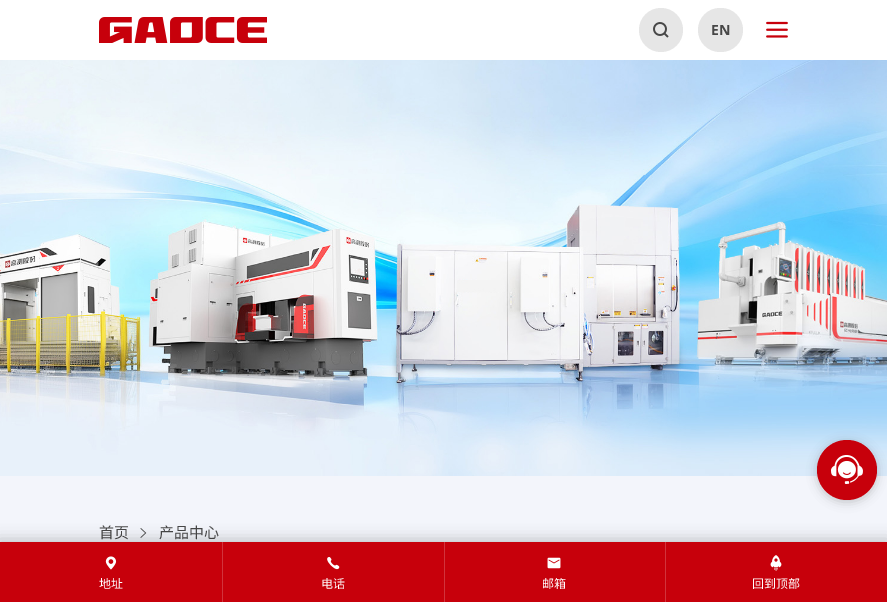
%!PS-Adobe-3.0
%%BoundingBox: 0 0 887 602
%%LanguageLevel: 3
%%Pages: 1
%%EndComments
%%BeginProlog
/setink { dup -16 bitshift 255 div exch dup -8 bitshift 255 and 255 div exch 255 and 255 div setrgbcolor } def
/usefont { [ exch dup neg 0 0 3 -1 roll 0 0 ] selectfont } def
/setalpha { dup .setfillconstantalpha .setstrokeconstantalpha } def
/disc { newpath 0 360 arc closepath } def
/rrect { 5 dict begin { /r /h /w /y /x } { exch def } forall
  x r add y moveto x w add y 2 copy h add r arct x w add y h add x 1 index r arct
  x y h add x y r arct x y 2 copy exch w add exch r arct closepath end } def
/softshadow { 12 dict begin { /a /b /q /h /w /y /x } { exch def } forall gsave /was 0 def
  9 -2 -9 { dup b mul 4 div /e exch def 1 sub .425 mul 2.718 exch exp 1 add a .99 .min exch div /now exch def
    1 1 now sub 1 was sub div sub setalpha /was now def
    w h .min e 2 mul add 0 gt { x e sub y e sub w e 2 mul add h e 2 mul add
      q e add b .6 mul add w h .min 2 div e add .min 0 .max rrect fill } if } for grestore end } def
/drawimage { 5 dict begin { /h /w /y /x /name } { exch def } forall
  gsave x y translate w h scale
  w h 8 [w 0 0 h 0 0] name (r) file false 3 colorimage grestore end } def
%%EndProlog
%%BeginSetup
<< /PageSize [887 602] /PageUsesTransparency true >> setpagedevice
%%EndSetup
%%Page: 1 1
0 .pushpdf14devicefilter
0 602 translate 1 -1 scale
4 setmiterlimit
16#FFFFFF setink
0 0 887 602 rectfill
(img1.raw) 99 17 168 26 drawimage
16#E6E6E6 setink
661 30 22 disc fill
(img2.raw) 653 22 16 16 drawimage
698 8 45 44 22 rrect fill
/NotoSans-Bold 14 usefont
16#474747 setink
711 35 moveto (EN) show
(img3.raw) 766 21 22 17 drawimage
(img4.raw) 0 60 887 416 drawimage
16#F3F5FB setink
0 476 887 66 rectfill
16#000000 setink
817 442 60 60 30 5 0.2 softshadow
16#C7000B setink
847 470 30 disc fill
(img5.raw) 831 455 32 29 drawimage
/NotoSansCJKSC-Regular 15 usefont
16#474747 setink
99 538 moveto (首页) show
(img6.raw) 140 528 7 10 drawimage
159 538 moveto (产品中心) show
16#000000 setink
-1 539 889 62 0 7 0.2 softshadow
16#C7000B setink
0 542 887 60 rectfill
(img7.raw) 105 556 12 14 drawimage
/NotoSansCJKSC-Regular 12 usefont
16#FFFFFF setink
99 588 moveto (地址) show
16#D2333C setink
222 542 1 60 rectfill
(img8.raw) 327 557 13 13 drawimage
16#FFFFFF setink
321 588 moveto (电话) show
16#D2333C setink
444 542 1 60 rectfill
(img9.raw) 547 557 14 12 drawimage
16#FFFFFF setink
542 588 moveto (邮箱) show
16#D2333C setink
665 542 1 60 rectfill
(img10.raw) 770 555 12 16 drawimage
16#FFFFFF setink
752 588 moveto (回到顶部) show
.poppdf14devicefilter showpage
%%EOF
